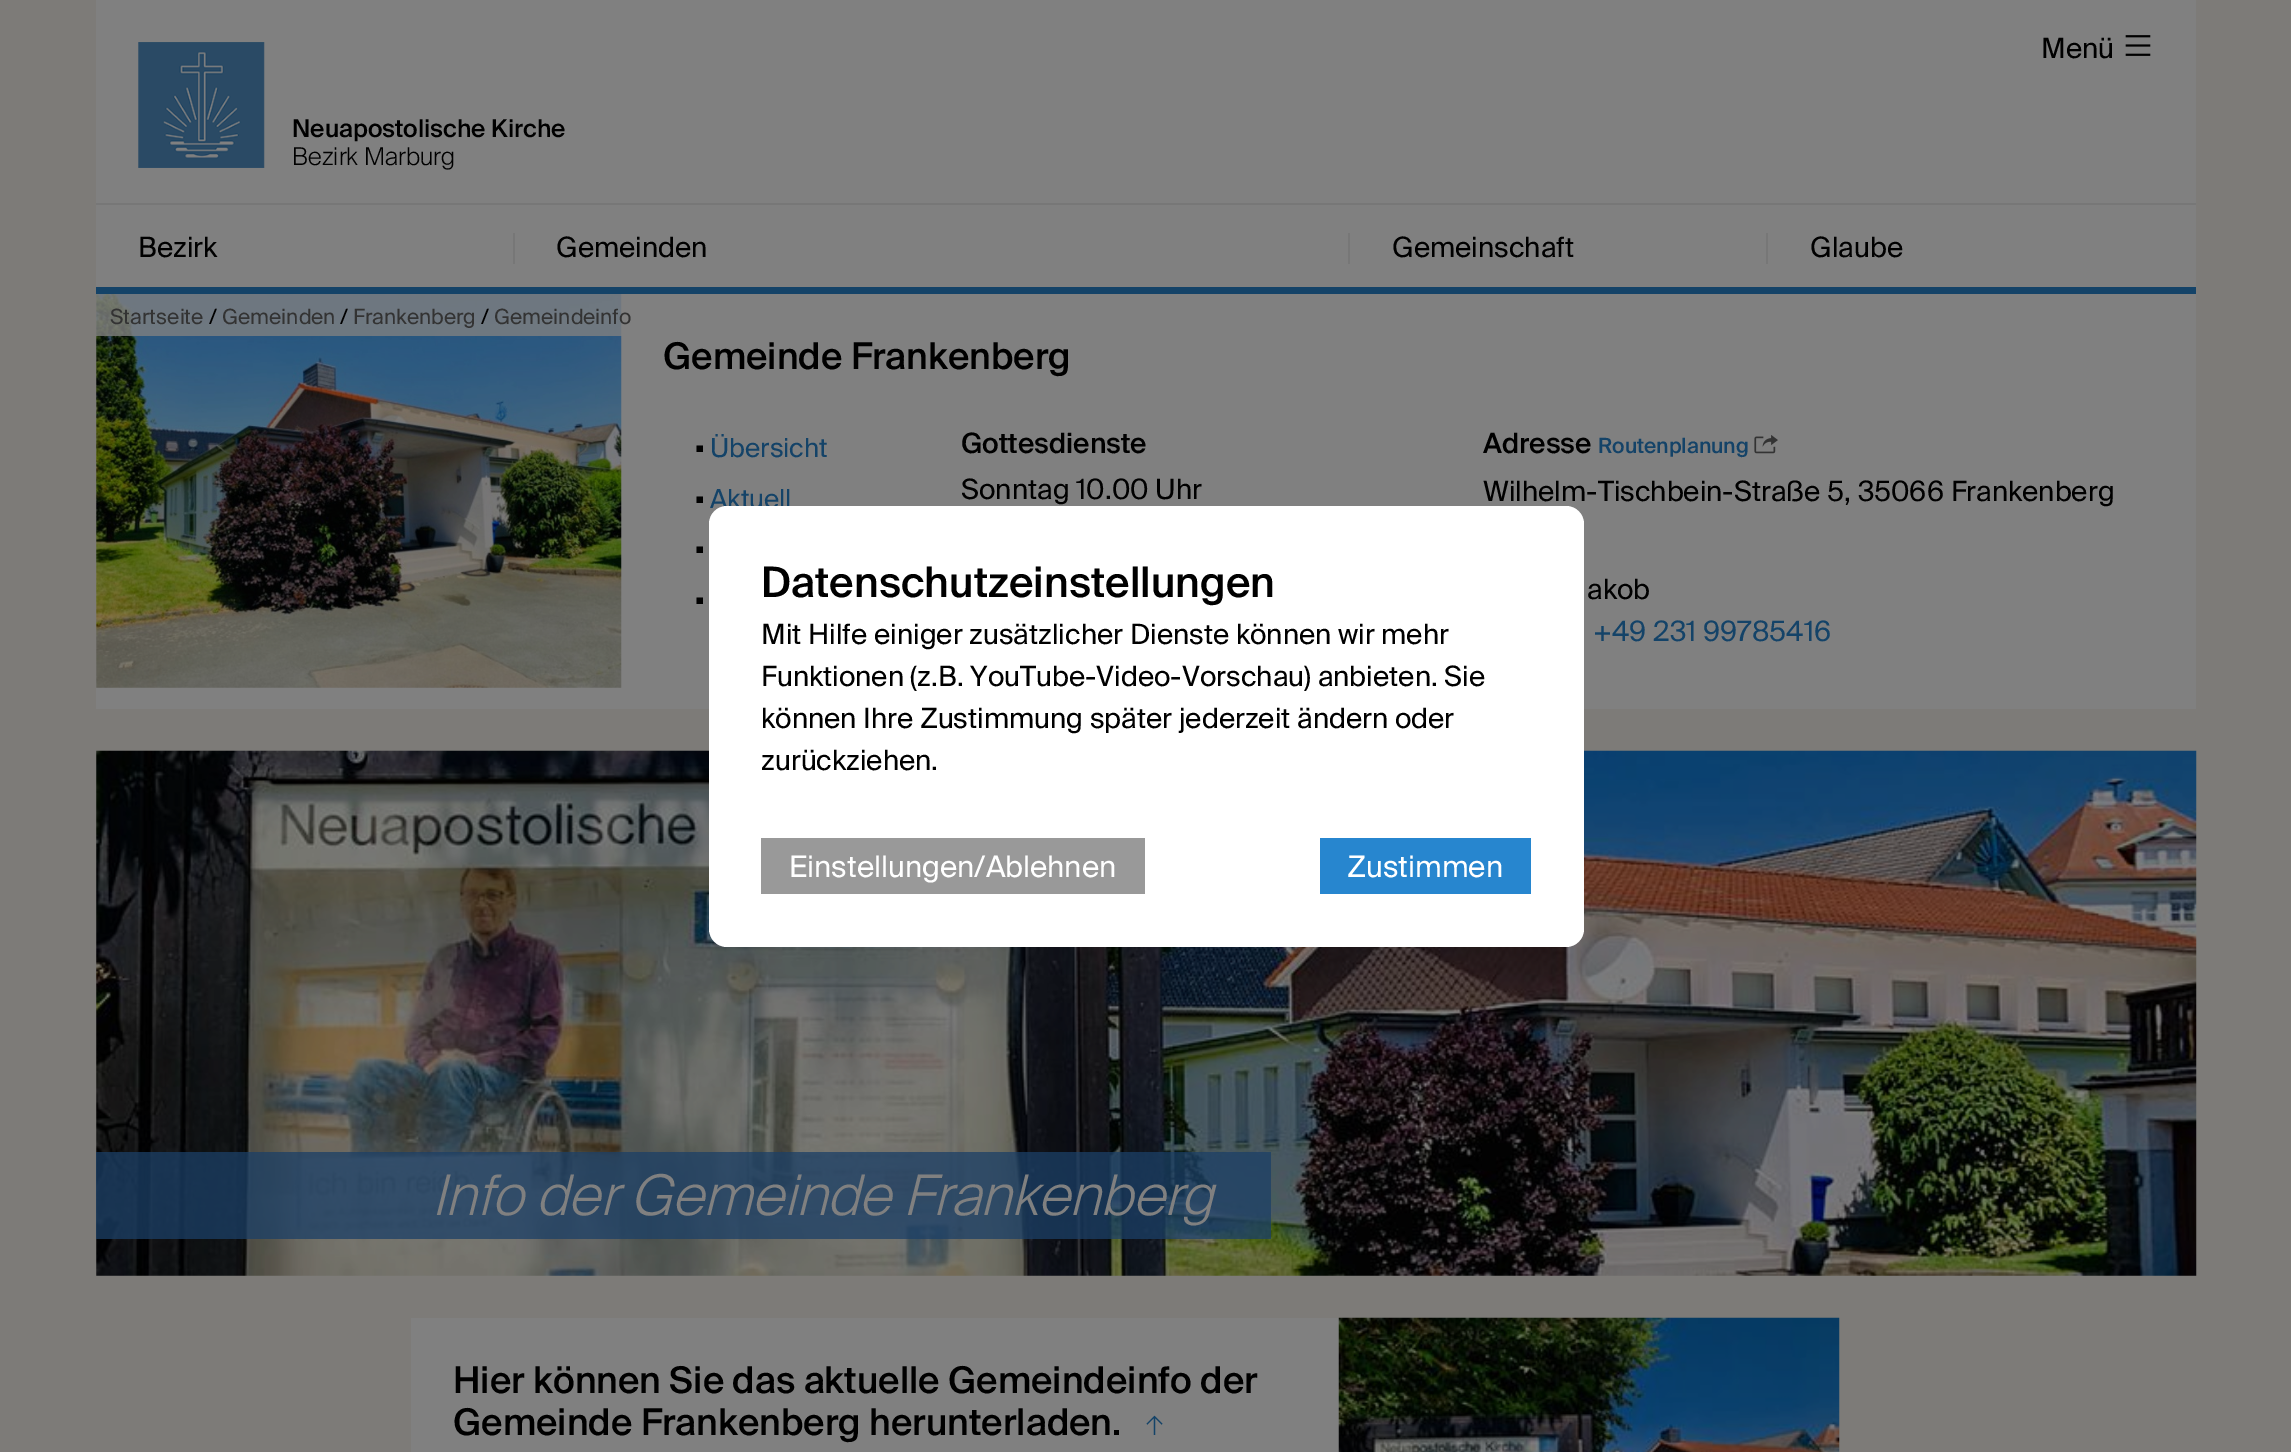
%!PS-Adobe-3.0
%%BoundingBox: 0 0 2291 1452
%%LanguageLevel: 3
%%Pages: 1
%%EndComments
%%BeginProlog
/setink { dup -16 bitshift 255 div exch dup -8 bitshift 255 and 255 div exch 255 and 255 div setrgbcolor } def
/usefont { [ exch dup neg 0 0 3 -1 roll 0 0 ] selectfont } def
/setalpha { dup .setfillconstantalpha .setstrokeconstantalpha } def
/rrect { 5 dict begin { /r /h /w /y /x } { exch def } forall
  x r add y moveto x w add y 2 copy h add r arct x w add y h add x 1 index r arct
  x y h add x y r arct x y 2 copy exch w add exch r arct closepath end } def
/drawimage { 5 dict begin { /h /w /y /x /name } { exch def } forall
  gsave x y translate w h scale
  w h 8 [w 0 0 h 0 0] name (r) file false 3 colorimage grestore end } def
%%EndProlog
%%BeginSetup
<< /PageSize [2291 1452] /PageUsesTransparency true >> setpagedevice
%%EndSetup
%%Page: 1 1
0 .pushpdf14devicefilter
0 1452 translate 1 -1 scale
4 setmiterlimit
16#7D7B78 setink
0 0 2291 1452 rectfill
16#808080 setink
96 0 2100 287 rectfill
16#144368 setink
96 287 2100 7 rectfill
(img1.raw) 138 42 127 126 drawimage
/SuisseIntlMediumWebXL-Medium 24.5 usefont
16#000000 setink
292 137 moveto (Neuapostolische Kirche) show
/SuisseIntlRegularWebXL-Regular 28 usefont
2041 58 moveto (Menü) show
(img2.raw) 2125 35 26 21 drawimage
/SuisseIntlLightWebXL-Light 24.5 usefont
292 165 moveto (Bezirk Marburg) show
16#777777 setink
96 203 2100 2 rectfill
513 233 2 31 rectfill
/SuisseIntlRegularWebXL-Regular 28 usefont
16#000000 setink
138 257 moveto (Bezirk) show
16#777777 setink
1348 233 2 31 rectfill
16#000000 setink
556 257 moveto (Gemeinden) show
16#777777 setink
1766 233 2 31 rectfill
16#000000 setink
1392 257 moveto (Gemeinschaft) show
1810 257 moveto (Glaube) show
16#808080 setink
96 294 2100 415 rectfill
(img3.raw) 96 294 526 394 drawimage
0.8 setalpha
96 294 526 42 rectfill
/SuisseIntlRegularWebXL-Regular 21 usefont
1 setalpha
16#333333 setink
110 324 moveto (Startseite) show
16#000000 setink
209 324 moveto (/) show
16#333333 setink
222 324 moveto (Gemeinden) show
16#000000 setink
340 324 moveto (/) show
16#333333 setink
353 324 moveto (Frankenberg) show
16#000000 setink
481 324 moveto (/) show
16#333333 setink
494 324 moveto (Gemeindeinfo) show
/SuisseIntlMediumWebXL-Medium 36.75 usefont
16#000000 setink
663 369 moveto (Gemeinde Frankenberg) show
/LiberationSans-Regular 26.25 usefont
695 457 moveto (▪) show
/SuisseIntlRegularWebXL-Regular 26.25 usefont
16#144368 setink
710 457 moveto (Übersicht) show
/LiberationSans-Regular 26.25 usefont
16#000000 setink
695 508 moveto (▪) show
/SuisseIntlRegularWebXL-Regular 26.25 usefont
16#144368 setink
710 508 moveto (Aktuell) show
/LiberationSans-Regular 26.25 usefont
16#000000 setink
695 558 moveto (▪) show
695 609 moveto (▪) show
/SuisseIntlMediumWebXL-Medium 28 usefont
961 453 moveto (Gottesdienste) show
/SuisseIntlRegularWebXL-Regular 28 usefont
961 499 moveto (Sonntag 10.00 Uhr) show
/SuisseIntlMediumWebXL-Medium 28 usefont
1483 453 moveto (Adresse) show
/SuisseIntlMediumWebXL-Medium 21 usefont
16#144368 setink
1598 453 moveto (Routenplanung) show
(img4.raw) 1754 435 24 19 drawimage
/SuisseIntlRegularWebXL-Regular 28 usefont
16#000000 setink
1483 501 moveto (Wilhelm-Tischbein-Straße 5, 35066 Frankenberg) show
1587 599 moveto (akob) show
16#144368 setink
1593 641 moveto (+49 231 99785416) show
(img5.raw) 96 750 2101 526 drawimage
16#FFFFFF setink
709 506 875 441 18 rrect fill
/SuisseIntlMediumWebXL-Medium 42 usefont
16#000000 setink
761 597 moveto (Datenschutzeinstellungen) show
/SuisseIntlRegularWebXL-Regular 28 usefont
[
    [(Mit Hilfe einiger zusätzlicher Dienste können wir mehr) 761 644]
    [(Funktionen \(z.B. YouTube-Video-Vorschau\) anbieten. Sie) 761 686]
    [(können Ihre Zustimmung später jederzeit ändern oder) 761 728]
    [(zurückziehen.) 761 770]
] { aload pop moveto show } forall
16#999999 setink
761 838 384 56 rectfill
/SuisseIntlRegularWebXL-Regular 29.75 usefont
16#FFFFFF setink
789 877 moveto (Einstellungen/Ablehnen) show
16#2786CF setink
1320 838 211 56 rectfill
16#FFFFFF setink
1347 877 moveto (Zustimmen) show
0.75 setalpha
16#1B3F66 setink
96 1152 1175 87 rectfill
/SuisseIntlLightWebXL-LightItalic 56 usefont
1 setalpha
16#808080 setink
432 1215 moveto (Info der Gemeinde Frankenberg) show
411 1318 928 134 rectfill
/SuisseIntlMediumWebXL-Medium 36.75 usefont
16#000000 setink
453 1393 moveto (Hier können Sie das aktuelle Gemeindeinfo der) show
453 1435 moveto (Gemeinde Frankenberg herunterladen.) show
/SuisseIntlLightWebXL-Light 26.25 usefont
16#144368 setink
1144 1435 moveto (↑) show
(img6.raw) 1338 1317 502 135 drawimage
.poppdf14devicefilter showpage
%%EOF
